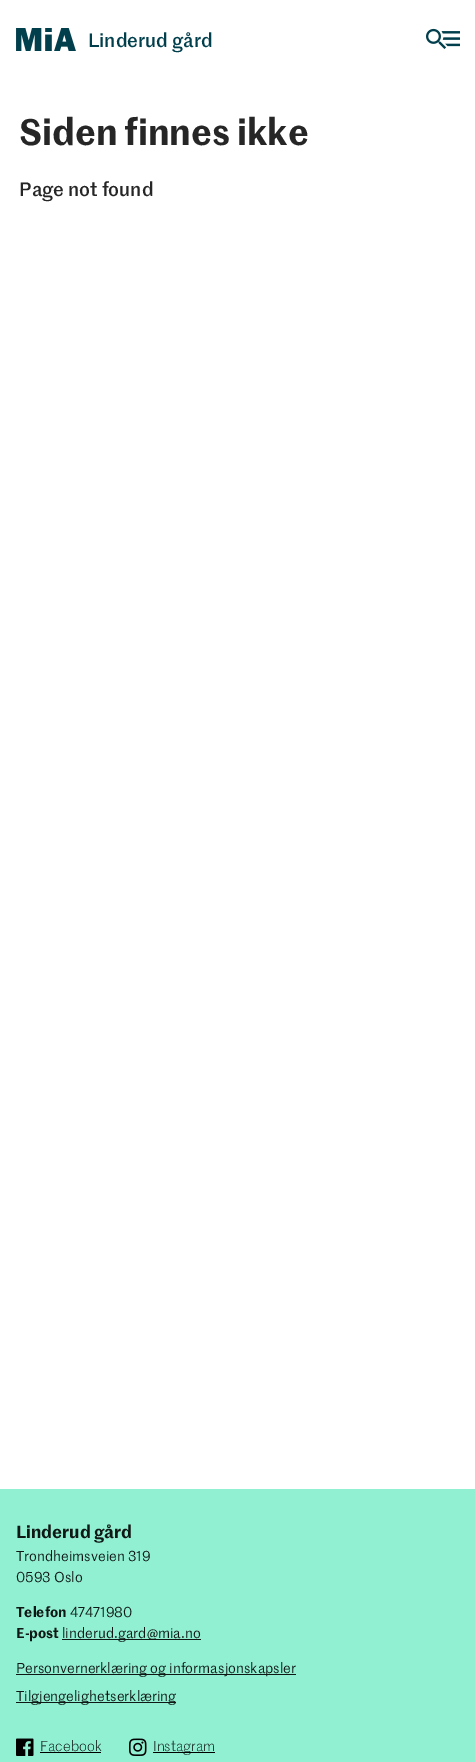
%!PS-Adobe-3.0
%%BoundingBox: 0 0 475 1762
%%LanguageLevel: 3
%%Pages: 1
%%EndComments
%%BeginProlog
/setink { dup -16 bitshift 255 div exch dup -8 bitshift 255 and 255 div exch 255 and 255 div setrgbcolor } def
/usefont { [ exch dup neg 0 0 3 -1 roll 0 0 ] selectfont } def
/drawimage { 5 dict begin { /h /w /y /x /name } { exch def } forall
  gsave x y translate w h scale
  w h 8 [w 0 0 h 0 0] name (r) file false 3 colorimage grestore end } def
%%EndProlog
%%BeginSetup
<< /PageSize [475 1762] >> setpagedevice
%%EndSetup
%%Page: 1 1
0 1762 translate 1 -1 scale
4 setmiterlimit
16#FFFFFF setink
0 0 475 1762 rectfill
(img1.raw) 16 28 60 23 drawimage
/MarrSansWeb-Medium 19 usefont
16#023F4D setink
88 47 moveto (Linderud gård) show
(img2.raw) 426 28 34 21 drawimage
/MarrSansWeb-SemiBold 36 usefont
16#262626 setink
19 145 moveto (Siden finnes ikke) show
/MarrSansWeb-Medium 19 usefont
19 196 moveto (Page not found) show
16#91F0D2 setink
0 1489 475 273 rectfill
/MarrSansWeb-SemiBold 17.25 usefont
16#0F1815 setink
16 1538 moveto (Linderud gård) show
/MarrSansWeb-Regular 14 usefont
16 1561 moveto (Trondheimsveien 319) show
16 1582 moveto (0593 Oslo) show
/MarrSansWeb-SemiBold 14 usefont
16 1617 moveto (Telefon) show
/MarrSansWeb-Regular 14 usefont
70 1617 moveto (47471980) show
/MarrSansWeb-SemiBold 14 usefont
16 1638 moveto (E-post) show
62 1639 139 1 rectfill
/MarrSansWeb-Regular 14 usefont
62 1638 moveto (linderud.gard@mia.no) show
16 1674 280 1 rectfill
16 1673 moveto (Personvernerklæring og informasjonskapsler) show
16 1702 160 1 rectfill
16 1701 moveto (Tilgjengelighetserklæring) show
(img3.raw) 16 1738 18 18 drawimage
/MarrSansWeb-Light 14 usefont
16#000000 setink
40 1751 moveto (Facebook) show
40 1752 61 1 rectfill
(img4.raw) 129 1738 18 18 drawimage
153 1752 62 1 rectfill
153 1751 moveto (Instagram) show
showpage
%%EOF
